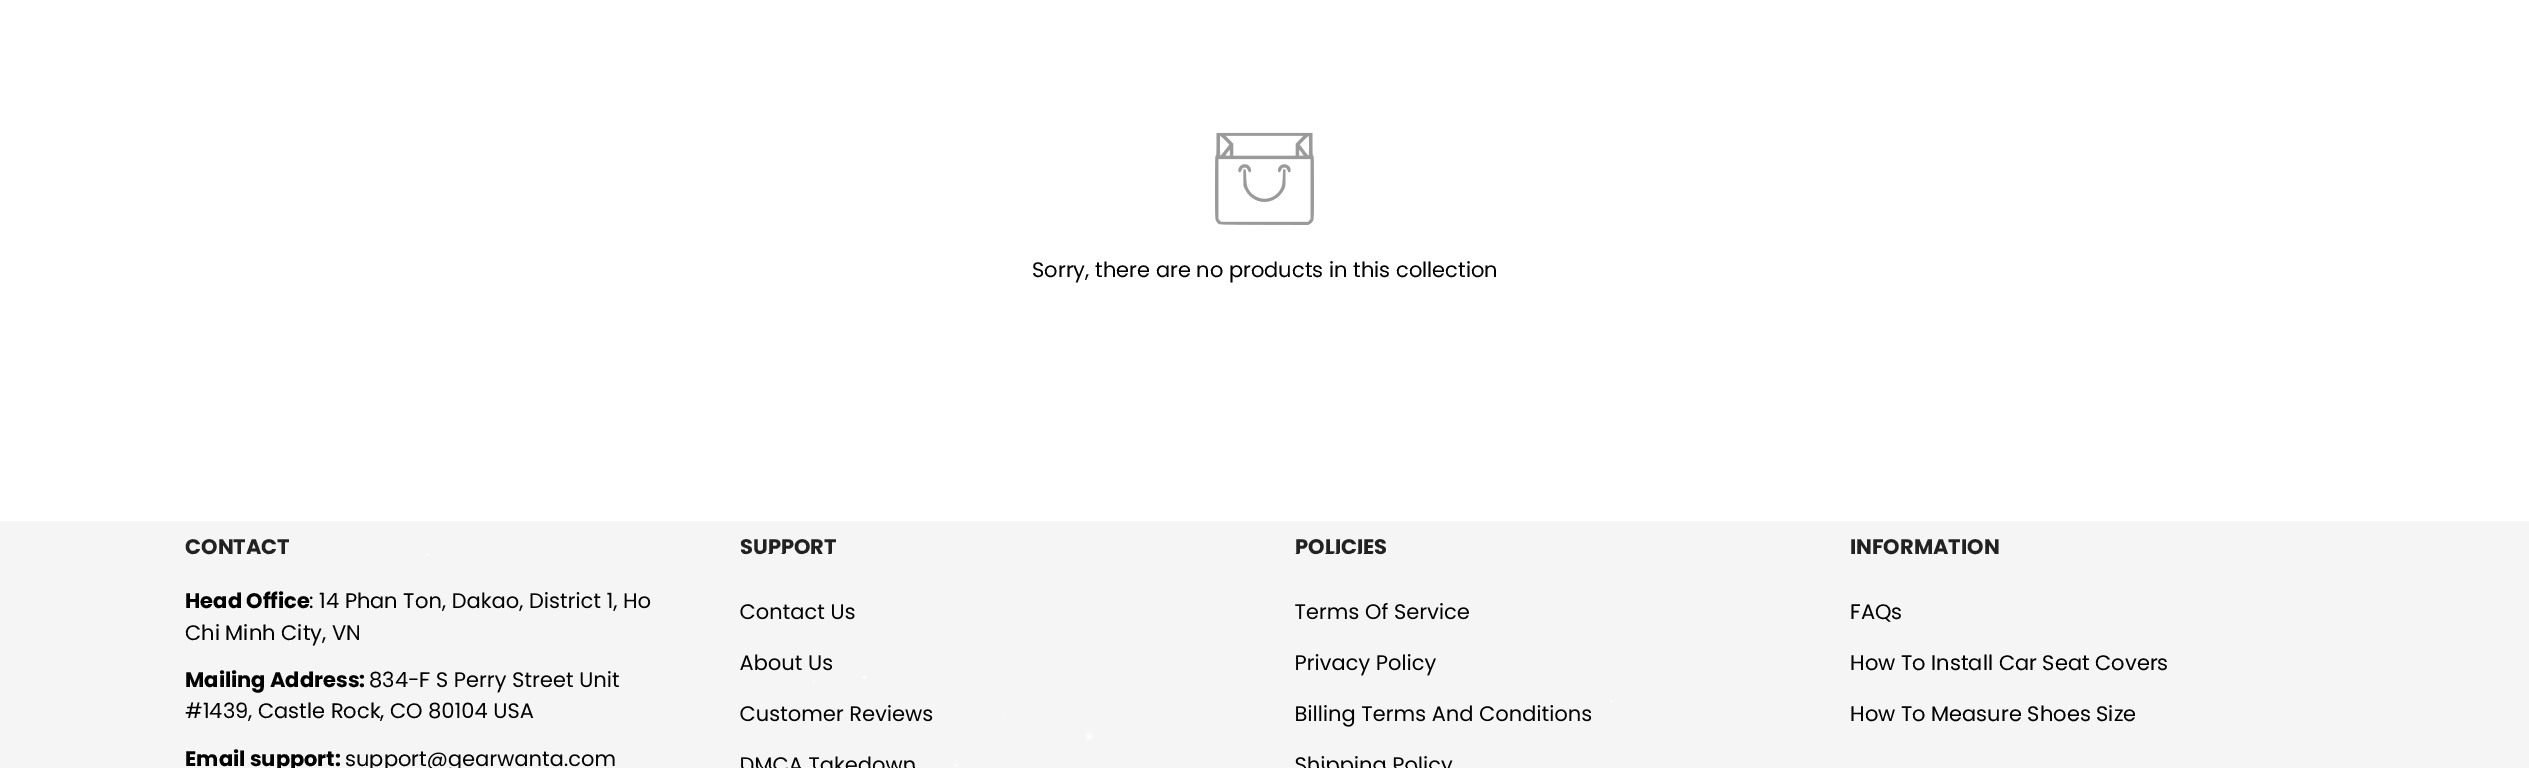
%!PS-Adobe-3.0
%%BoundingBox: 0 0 2529 768
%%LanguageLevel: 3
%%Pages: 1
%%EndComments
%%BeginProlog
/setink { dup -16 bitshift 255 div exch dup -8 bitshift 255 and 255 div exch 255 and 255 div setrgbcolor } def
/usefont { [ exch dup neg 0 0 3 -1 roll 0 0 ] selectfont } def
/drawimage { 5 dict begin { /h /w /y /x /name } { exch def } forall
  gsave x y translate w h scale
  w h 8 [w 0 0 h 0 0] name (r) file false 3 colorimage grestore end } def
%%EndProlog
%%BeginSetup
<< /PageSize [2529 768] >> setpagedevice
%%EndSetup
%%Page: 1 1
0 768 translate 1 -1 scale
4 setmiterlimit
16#FFFFFF setink
0 0 2529 768 rectfill
(img1.raw) 1215 132 99 93 drawimage
/Poppins-Regular 21 usefont
16#000000 setink
1032 277 moveto (Sorry, there are no products in this collection) show
16#F5F5F5 setink
0 521 2529 247 rectfill
/Poppins-Bold 21 usefont
16#222222 setink
185 554 moveto (CONTACT) show
16#000000 setink
185 608 moveto (Head Office) show
/Poppins-Regular 21 usefont
309 608 moveto (: 14 Phan Ton, Dakao, District 1, Ho) show
185 640 moveto (Chi Minh City, VN) show
/Poppins-Bold 21 usefont
185 687 moveto (Mailing Address:) show
/Poppins-Regular 21 usefont
369 687 moveto (834-F S Perry Street Unit) show
185 718 moveto (#1439, Castle Rock, CO 80104 USA) show
/Poppins-Bold 21 usefont
185 766 moveto (Email support:) show
/Poppins-Regular 21 usefont
345 766 moveto (support@gearwanta.com) show
/Poppins-Bold 21 usefont
16#222222 setink
740 554 moveto (SUPPORT) show
/Poppins-Regular 21 usefont
16#000000 setink
[
    [(Contact Us) 740 619]
    [(About Us) 740 670]
    [(Customer Reviews) 740 721]
    [(DMCA Takedown) 740 772]
] { aload pop moveto show } forall
/Poppins-Bold 21 usefont
16#222222 setink
1295 554 moveto (POLICIES) show
/Poppins-Regular 21 usefont
16#000000 setink
[
    [(Terms Of Service) 1295 619]
    [(Privacy Policy) 1295 670]
    [(Billing Terms And Conditions) 1295 721]
    [(Shipping Policy) 1295 772]
] { aload pop moveto show } forall
/Poppins-Bold 21 usefont
16#222222 setink
1850 554 moveto (INFORMATION) show
/Poppins-Regular 21 usefont
16#000000 setink
[
    [(FAQs) 1850 619]
    [(How To Install Car Seat Covers) 1850 670]
    [(How To Measure Shoes Size) 1850 721]
] { aload pop moveto show } forall
(img2.raw) 426 553 1187 214 drawimage
showpage
%%EOF
